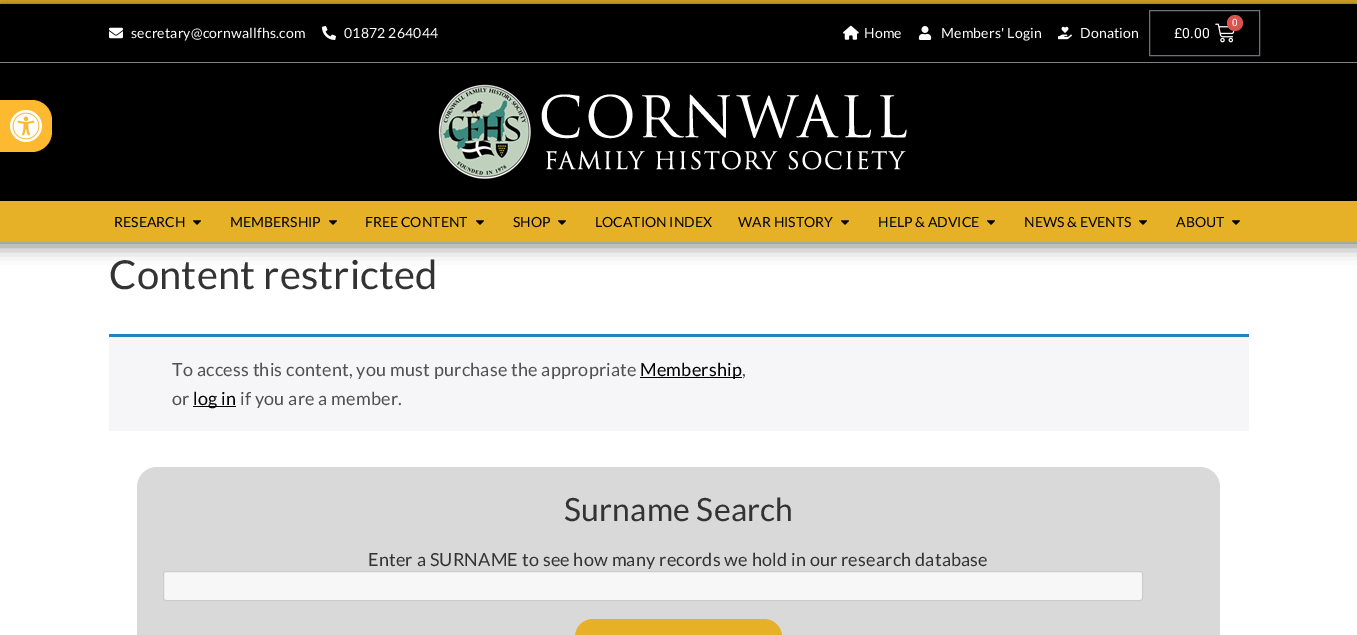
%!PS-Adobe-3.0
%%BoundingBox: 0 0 1357 635
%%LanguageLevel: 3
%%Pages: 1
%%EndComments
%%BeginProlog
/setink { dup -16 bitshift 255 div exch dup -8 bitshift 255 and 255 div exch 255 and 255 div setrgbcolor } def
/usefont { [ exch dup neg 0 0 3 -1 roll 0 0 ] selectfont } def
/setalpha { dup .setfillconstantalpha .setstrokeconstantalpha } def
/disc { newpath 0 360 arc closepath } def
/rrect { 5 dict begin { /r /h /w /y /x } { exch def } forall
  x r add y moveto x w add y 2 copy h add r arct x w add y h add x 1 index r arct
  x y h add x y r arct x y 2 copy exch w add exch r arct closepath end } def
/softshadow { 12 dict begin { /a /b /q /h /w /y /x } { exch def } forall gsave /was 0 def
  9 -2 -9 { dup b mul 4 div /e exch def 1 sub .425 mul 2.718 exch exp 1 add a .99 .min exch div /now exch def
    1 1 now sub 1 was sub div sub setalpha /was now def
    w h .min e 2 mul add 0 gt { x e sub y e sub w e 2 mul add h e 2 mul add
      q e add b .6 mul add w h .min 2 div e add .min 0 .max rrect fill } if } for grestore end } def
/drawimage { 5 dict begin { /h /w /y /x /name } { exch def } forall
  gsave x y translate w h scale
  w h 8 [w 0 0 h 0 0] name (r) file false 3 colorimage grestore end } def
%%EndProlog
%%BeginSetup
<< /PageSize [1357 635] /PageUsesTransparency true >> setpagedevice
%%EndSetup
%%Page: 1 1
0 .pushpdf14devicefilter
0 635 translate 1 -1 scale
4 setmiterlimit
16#FFFFFF setink
0 0 1357 635 rectfill
16#000000 setink
-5 -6 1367 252 0 8.5 0.5 softshadow
0 4 1357 197 rectfill
16#FDBA30 setink
0 100 moveto 32 100 lineto 43 100 52 109 52 120 curveto 52 132 lineto 52 143 43 152 32 152 curveto 0 152 lineto closepath fill
(img1.raw) 10 110 32 32 drawimage
16#E7B127 setink
0 0 1357 4 rectfill
gsave
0 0 moveto 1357 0 lineto 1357 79 lineto 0 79 lineto closepath 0 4 moveto 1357 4 lineto 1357 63 lineto 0 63 lineto closepath eoclip newpath
16#000000 setink
0 4 1357 59 0 5 0.5 softshadow
grestore
16#818181 setink
0 62 1357 1 rectfill
(img2.raw) 109 27 14 12 drawimage
/Lato-Regular 14 usefont
16#FFFFFF setink
131 38 moveto 0.2 0 (secretary@cornwallfhs.com) ashow
(img3.raw) 322 26 14 14 drawimage
344 38 moveto 0.2 0 (01872 264044) ashow
(img4.raw) 843 25 16 15 drawimage
864 38 moveto 0.2 0 (Home) ashow
(img5.raw) 918 26 14 14 drawimage
941 38 moveto 0.2 0 (Members' Login) ashow
(img6.raw) 1058 26 14 14 drawimage
1080 38 moveto 0.2 0 (Donation) ashow
16#69727D setink
1149.5 10.5 110 45 rectstroke
(img7.raw) 1215 23 20 20 drawimage
16#D9534F setink
1235 23 8 disc fill
/Roboto-Regular 10 usefont
16#FFFFFF setink
1232 26 moveto 0.2 0 (0) ashow
/Roboto-Regular 14 usefont
1174 38 moveto 0.2 0 (£0.00) ashow
(img8.raw) 438 84 469 95 drawimage
16#E7B127 setink
0 201 1357 41 rectfill
/Lato-Regular 14 usefont
16#000000 setink
114 227 moveto (RESEARCH) show
(img9.raw) 193 220 8 5 drawimage
230 227 moveto (MEMBERSHIP) show
(img9.raw) 329 220 8 5 drawimage
365 227 moveto (FREE CONTENT) show
(img9.raw) 476 220 8 5 drawimage
513 227 moveto (SHOP) show
(img9.raw) 558 220 8 5 drawimage
595 227 moveto (LOCATION INDEX) show
738 227 moveto (WAR HISTORY) show
(img9.raw) 841 220 8 5 drawimage
878 227 moveto (HELP & ADVICE) show
(img9.raw) 987 220 8 5 drawimage
1024 227 moveto (NEWS & EVENTS) show
(img9.raw) 1139 220 8 5 drawimage
1176 227 moveto (ABOUT) show
(img9.raw) 1232 220 8 5 drawimage
/Lato-Regular 40 usefont
16#333333 setink
109 289 moveto 0.2 0 (Content restricted) ashow
16#F6F5F8 setink
109 337 1140 94 rectfill
16#1E85BE setink
109 334 1140 3 rectfill
/Lato-Regular 18 usefont
16#515151 setink
172 376 moveto 0.2 0 (To access this content, you must purchase the appropriate) ashow
16#000000 setink
640 377 102 1 rectfill
640 376 moveto 0.2 0 (Membership) ashow
16#515151 setink
742 376 moveto 0.2 0 (,) ashow
172 405 moveto 0.2 0 (or) ashow
16#000000 setink
193 406 43 1 rectfill
193 405 moveto 0.2 0 (log in) ashow
16#515151 setink
240 405 moveto 0.2 0 (if you are a member.) ashow
16#D9D9D9 setink
137 467 1083 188 20 rrect fill
/Lato-Regular 32 usefont
16#333333 setink
564 521 moveto 0.2 0 (Surname Search) ashow
/Lato-Regular 18 usefont
368 566 moveto 0.2 0 (Enter a SURNAME to see how many records we hold in our research database) ashow
16#F7F7F7 setink
163.5 571.5 979 29 2.5 rrect gsave fill grestore
16#CCCCCC setink
stroke
16#E7B127 setink
575 619 207 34 18 rrect fill
.poppdf14devicefilter showpage
%%EOF
